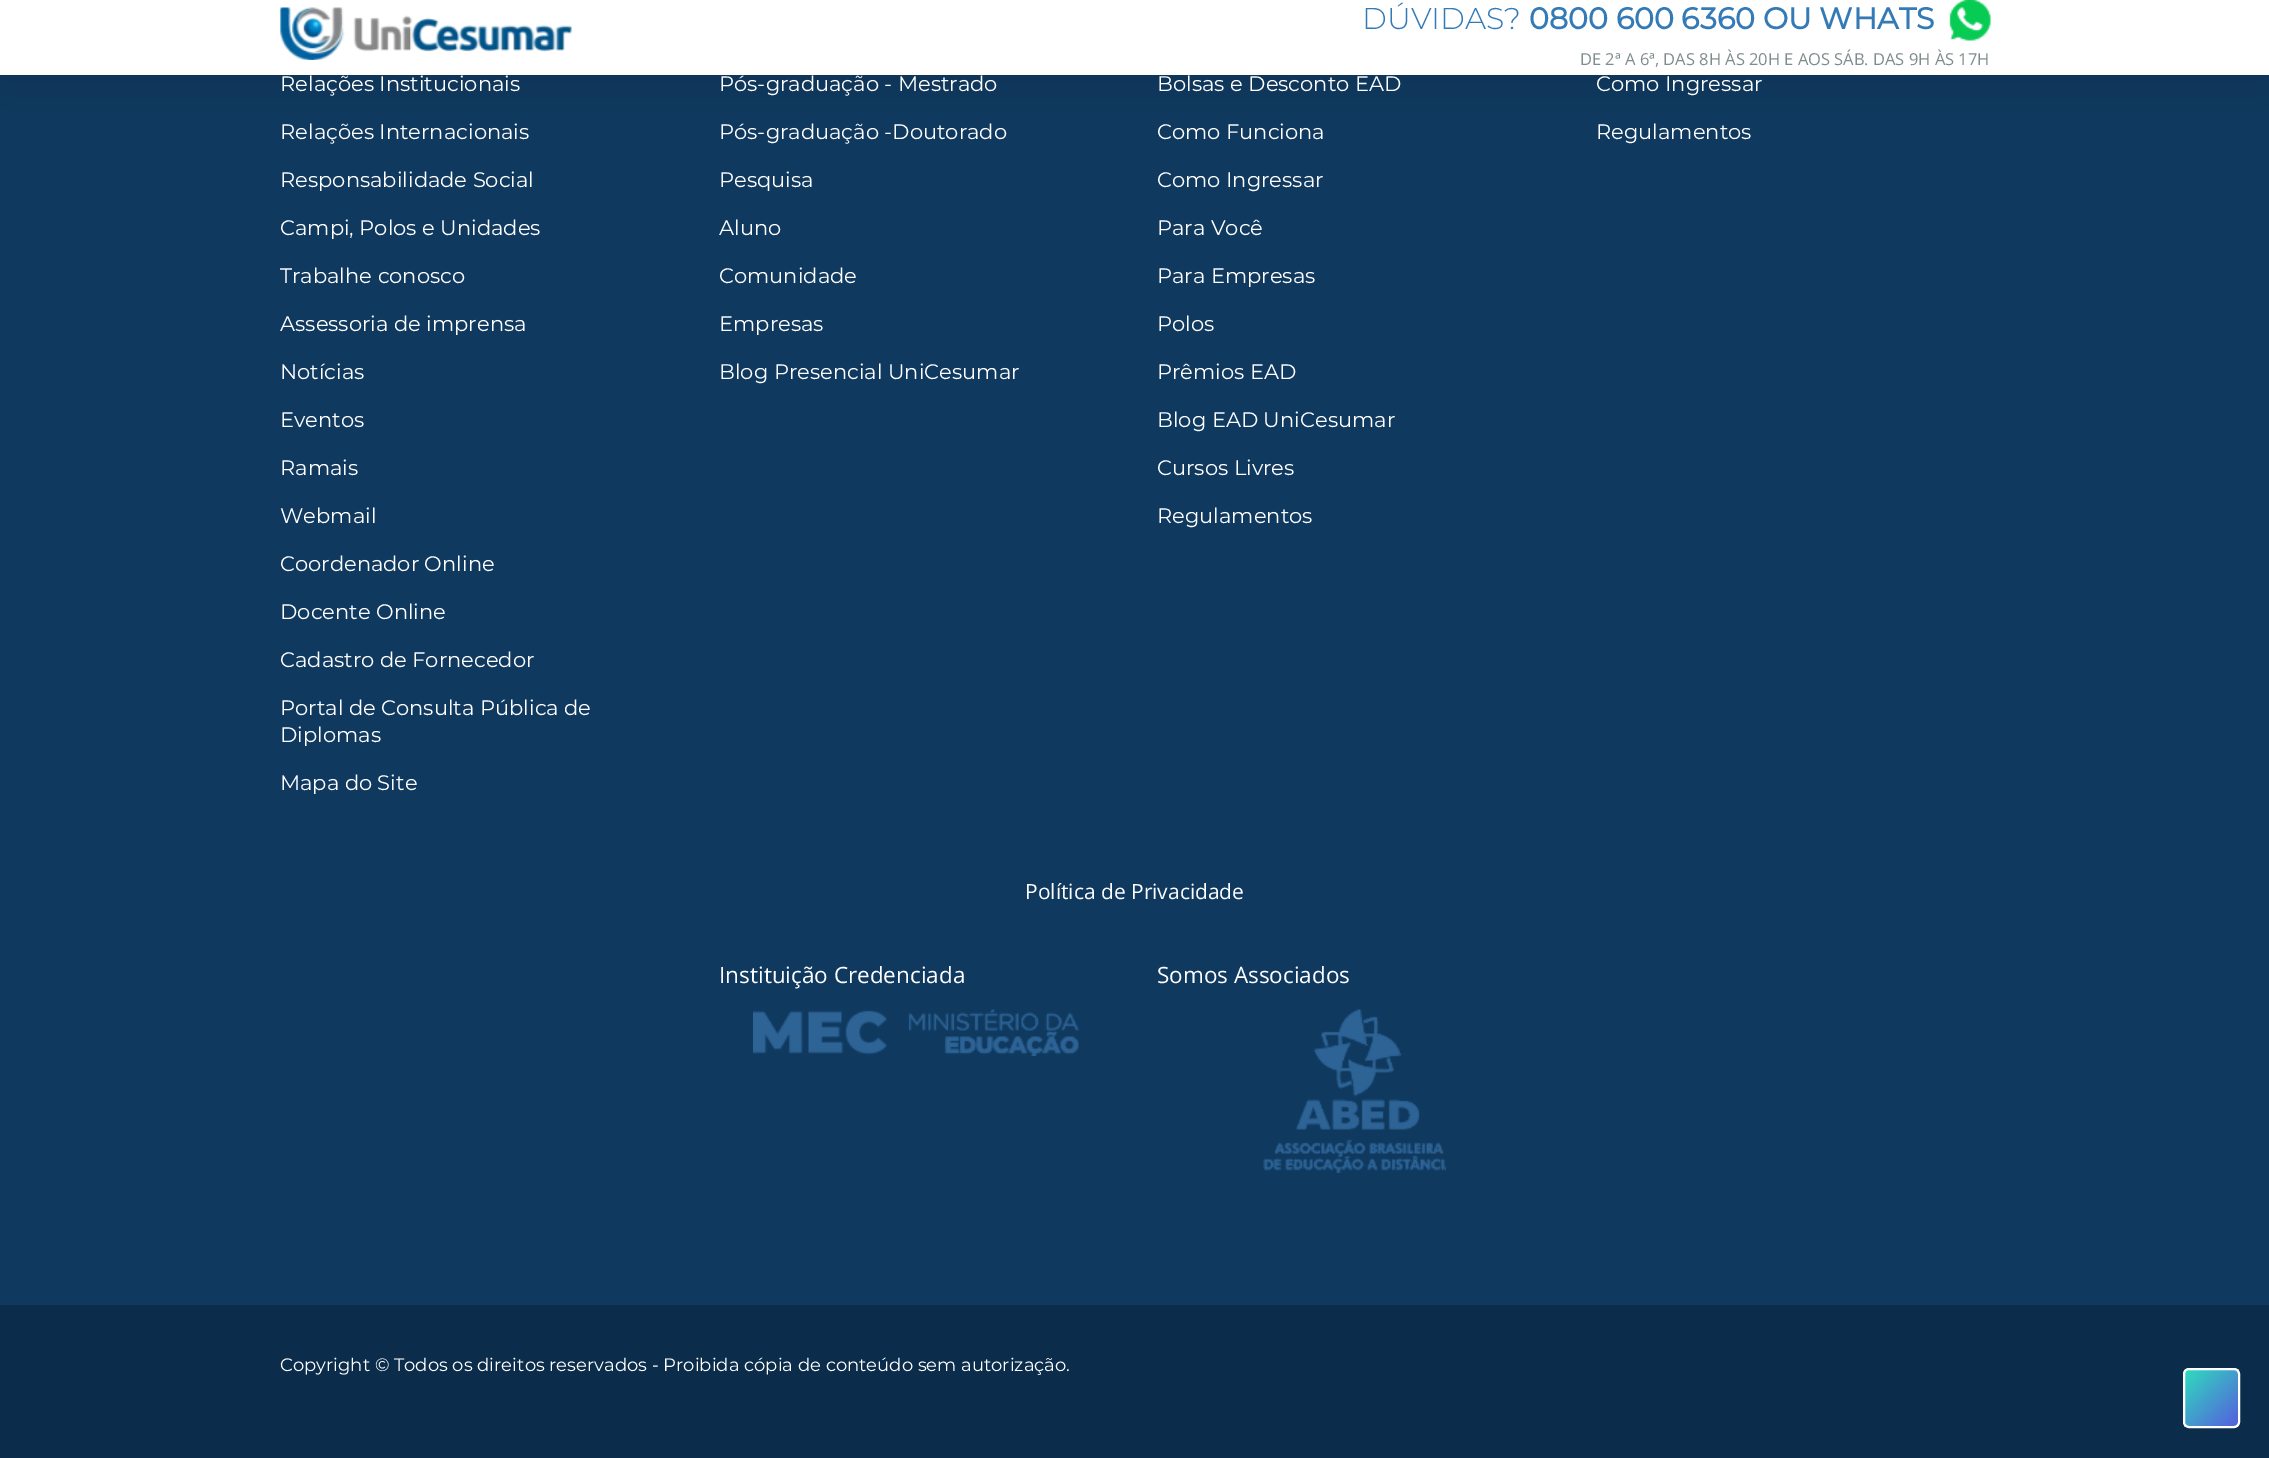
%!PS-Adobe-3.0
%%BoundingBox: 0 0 2269 1458
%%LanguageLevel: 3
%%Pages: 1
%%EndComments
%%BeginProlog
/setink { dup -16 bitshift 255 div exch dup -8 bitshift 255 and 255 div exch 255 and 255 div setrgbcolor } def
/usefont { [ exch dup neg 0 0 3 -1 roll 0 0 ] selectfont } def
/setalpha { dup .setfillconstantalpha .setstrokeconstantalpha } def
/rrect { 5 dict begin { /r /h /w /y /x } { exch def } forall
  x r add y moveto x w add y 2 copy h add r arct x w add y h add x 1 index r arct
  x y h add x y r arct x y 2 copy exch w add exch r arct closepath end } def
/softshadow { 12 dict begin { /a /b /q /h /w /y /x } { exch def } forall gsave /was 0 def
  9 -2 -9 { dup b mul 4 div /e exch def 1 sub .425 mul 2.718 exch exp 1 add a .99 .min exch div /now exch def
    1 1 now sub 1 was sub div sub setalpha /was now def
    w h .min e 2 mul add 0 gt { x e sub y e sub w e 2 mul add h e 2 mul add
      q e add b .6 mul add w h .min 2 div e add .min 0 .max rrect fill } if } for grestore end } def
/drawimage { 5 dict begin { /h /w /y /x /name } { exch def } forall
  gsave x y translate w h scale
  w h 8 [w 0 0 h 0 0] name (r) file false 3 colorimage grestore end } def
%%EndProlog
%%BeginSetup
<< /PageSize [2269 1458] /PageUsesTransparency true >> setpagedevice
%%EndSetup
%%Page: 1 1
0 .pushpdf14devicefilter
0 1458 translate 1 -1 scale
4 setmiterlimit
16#0F395F setink
0 0 2269 1458 rectfill
16#000000 setink
0 0 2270 75 0 30 0.15 softshadow
16#FFFFFF setink
0 0 2269 75 rectfill
(img1.raw) 280 7 292 53 drawimage
/Montserrat-Light 30 usefont
16#337AB7 setink
1362 29 moveto (DÚVIDAS?) show
/Montserrat-Bold 30 usefont
1529 29 moveto (0800 600 6360 OU WHATS) show
(img2.raw) 1949 0 42 41 drawimage
/OpenSans-Regular 16.5 usefont
16#7F8C8D setink
1580 65 moveto (DE 2ª A 6ª, DAS 8H ÀS 20H E AOS SÁB. DAS 9H ÀS 17H) show
/Montserrat-Regular 21 usefont
16#FFFFFF setink
[
    [(Relações Institucionais) 280 91]
    [(Relações Internacionais) 280 139]
    [(Responsabilidade Social) 280 187]
    [(Campi, Polos e Unidades) 280 235]
    [(Trabalhe conosco) 280 283]
    [(Assessoria de imprensa) 280 331]
    [(Notícias) 280 379]
    [(Eventos) 280 427]
    [(Ramais) 280 475]
    [(Webmail) 280 523]
    [(Coordenador Online) 280 571]
    [(Docente Online) 280 619]
    [(Cadastro de Fornecedor) 280 667]
    [(Portal de Consulta Pública de) 280 715]
    [(Diplomas) 280 742]
    [(Mapa do Site) 280 790]
    [(Pós-graduação - Mestrado) 719 91]
    [(Pós-graduação -Doutorado) 719 139]
    [(Pesquisa) 719 187]
    [(Aluno) 719 235]
    [(Comunidade) 719 283]
    [(Empresas) 719 331]
    [(Blog Presencial UniCesumar) 719 379]
    [(Bolsas e Desconto EAD) 1157 91]
    [(Como Funciona) 1157 139]
    [(Como Ingressar) 1157 187]
    [(Para Você) 1157 235]
    [(Para Empresas) 1157 283]
    [(Polos) 1157 331]
    [(Prêmios EAD) 1157 379]
    [(Blog EAD UniCesumar) 1157 427]
    [(Cursos Livres) 1157 475]
    [(Regulamentos) 1157 523]
    [(Como Ingressar) 1596 91]
    [(Regulamentos) 1596 139]
] { aload pop moveto show } forall
/OpenSans-Regular 21 usefont
1025 899 moveto (Política de Privacidade) show
/OpenSans-Regular 22.5 usefont
719 983 moveto (Instituição Credenciada) show
(img3.raw) 753 1009 326 47 drawimage
1157 983 moveto (Somos Associados) show
(img4.raw) 1263 1009 183 164 drawimage
16#0B2C4A setink
0 1305 2269 153 rectfill
/Montserrat-Regular 18 usefont
16#FFFFFF setink
280 1371 moveto (Copyright © Todos os direitos reservados - Proibida cópia de conteúdo sem autorização.) show
gsave
2183 1368 57 60 6 rrect clip newpath
gsave 2238 1369 moveto 2240 1369 lineto 2240 1370 lineto 2238 1370 lineto closepath clip newpath
<< /ShadingType 2 /ColorSpace /DeviceRGB /Coords [2237 1314 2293 1368] /Extend [true true] /Function << /FunctionType 2 /Domain [0 1] /C0 [0.184 0.867 0.741] /C1 [0.333 0.369 0.867] /N 1 >> >> shfill grestore
gsave 2184 1370 moveto 2238 1370 lineto 2238 1427 lineto 2184 1427 lineto closepath clip newpath
<< /ShadingType 2 /ColorSpace /DeviceRGB /Coords [2183 1371 2239 1425] /Extend [true true] /Function << /FunctionType 2 /Domain [0 1] /C0 [0.184 0.867 0.741] /C1 [0.333 0.369 0.867] /N 1 >> >> shfill grestore
grestore
2 setlinewidth
2184 1369 55 58 5 rrect stroke
.poppdf14devicefilter showpage
%%EOF
